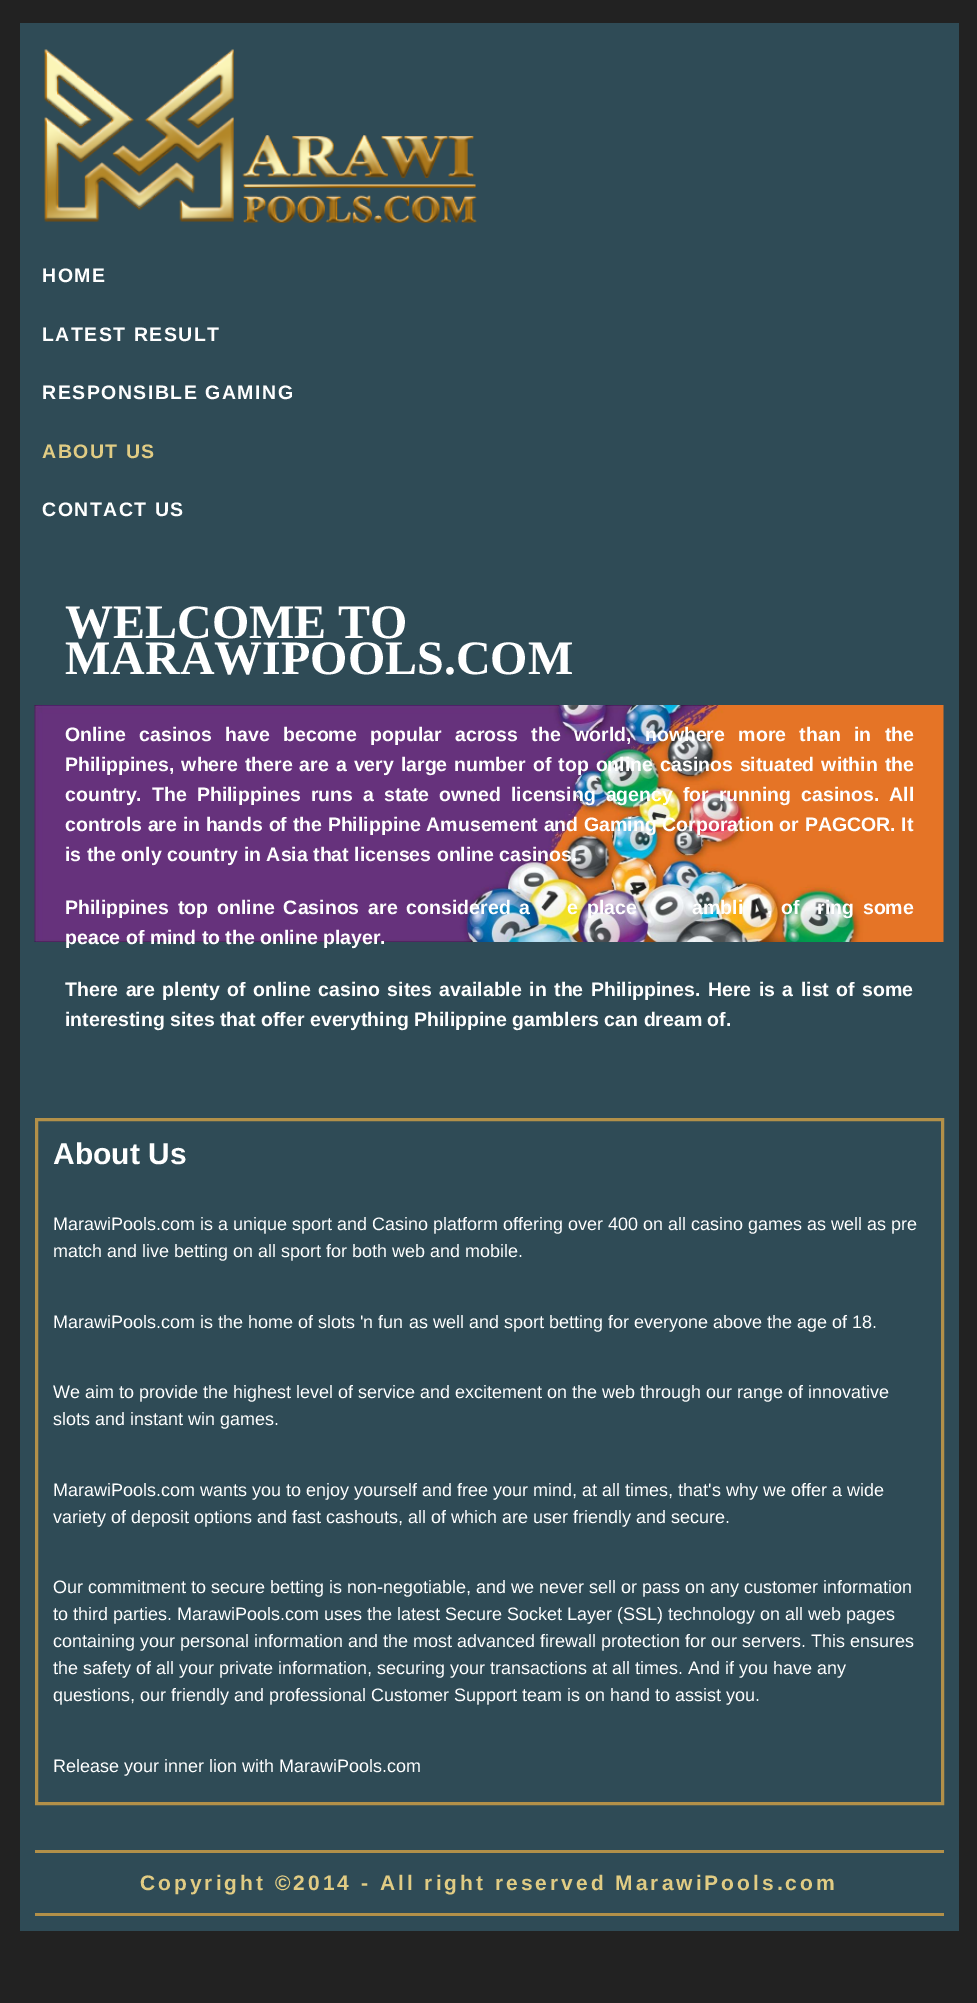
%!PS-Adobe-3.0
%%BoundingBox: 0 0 977 2003
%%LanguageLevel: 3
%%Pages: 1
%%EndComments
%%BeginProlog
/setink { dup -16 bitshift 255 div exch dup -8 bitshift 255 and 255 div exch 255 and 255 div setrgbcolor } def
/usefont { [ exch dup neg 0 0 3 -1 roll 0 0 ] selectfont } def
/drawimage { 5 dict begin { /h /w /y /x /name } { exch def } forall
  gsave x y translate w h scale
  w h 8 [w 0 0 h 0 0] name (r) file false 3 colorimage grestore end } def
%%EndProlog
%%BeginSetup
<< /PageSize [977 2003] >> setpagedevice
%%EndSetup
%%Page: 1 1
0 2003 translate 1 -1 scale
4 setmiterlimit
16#222222 setink
0 0 977 2003 rectfill
16#2F4B56 setink
20 23 939 1908 rectfill
(img1.raw) 44 49 433 174 drawimage
/LiberationSans-Bold 19.5 usefont
16#FFFFFF setink
42 282 moveto 1.5 0 (HOME) ashow
42 341 moveto 1.5 0 (LATEST RESULT) ashow
42 399 moveto 1.5 0 (RESPONSIBLE GAMING) ashow
16#E1CC84 setink
42 458 moveto 1.5 0 (ABOUT US) ashow
16#FFFFFF setink
42 516 moveto 1.5 0 (CONTACT US) ashow
(img2.raw) 34 705 910 237 drawimage
/LiberationSerif-Bold 48 usefont
65 638 moveto (WELCOME TO) show
65 674 moveto (MARAWIPOOLS.COM) show
/LiberationSans-Bold 19.5 usefont
65 741 moveto 8 0 32 (Online casinos have become popular across the world, nowhere more than in the) widthshow
65 771 moveto 1.6 0 32 (Philippines, where there are a very large number of top online casinos situated within the) widthshow
65 801 moveto 4.6 0 32 (country. The Philippines runs a state owned licensing agency for running casinos. All) widthshow
65 831 moveto 0.25 0 32 (controls are in hands of the Philippine Amusement and Gaming Corporation or PAGCOR. It) widthshow
65 861 moveto (is the only country in Asia that licenses online casinos.) show
65 914 moveto 3.5 0 32 (Philippines top online Casinos are considered a) widthshow
567 914 moveto 3.5 0 32 (e place) widthshow
692 914 moveto 3.5 0 32 (ambli) widthshow
767 914 moveto 3.5 0 32 (, of) widthshow
817 914 moveto 3.5 0 32 (ring some) widthshow
65 944 moveto (peace of mind to the online player.) show
65 996 moveto 2.1 0 32 (There are plenty of online casino sites available in the Philippines. Here is a list of some) widthshow
65 1026 moveto (interesting sites that offer everything Philippine gamblers can dream of.) show
16#B29049 setink
3 setlinewidth
36.5 1119.5 906 684 rectstroke
/LiberationSans-Bold 30 usefont
16#FFFFFF setink
53 1164 moveto (About Us) show
/LiberationSans-Regular 18 usefont
[
    [(MarawiPools.com is a unique sport and Casino platform offering over 400 on all casino games as well as pre) 53 1230]
    [(match and live betting on all sport for both web and mobile.) 53 1257]
    [(MarawiPools.com is the home of slots 'n fun as well and sport betting for everyone above the age of 18.) 53 1328]
    [(We aim to provide the highest level of service and excitement on the web through our range of innovative) 53 1398]
    [(slots and instant win games.) 53 1425]
    [(MarawiPools.com wants you to enjoy yourself and free your mind, at all times, that's why we offer a wide) 53 1496]
    [(variety of deposit options and fast cashouts, all of which are user friendly and secure.) 53 1523]
    [(Our commitment to secure betting is non-negotiable, and we never sell or pass on any customer information) 53 1593]
    [(to third parties. MarawiPools.com uses the latest Secure Socket Layer \(SSL\) technology on all web pages) 53 1620]
    [(containing your personal information and the most advanced firewall protection for our servers. This ensures) 53 1647]
    [(the safety of all your private information, securing your transactions at all times. And if you have any) 53 1674]
    [(questions, our friendly and professional Customer Support team is on hand to assist you.) 53 1701]
    [(Release your inner lion with MarawiPools.com) 53 1772]
] { aload pop moveto show } forall
16#B29049 setink
35 1850 909 3 rectfill
35 1913 909 3 rectfill
/LiberationSans-Bold 21 usefont
16#E1CC84 setink
140 1890 moveto 3 0 (Copyright ©2014 - All right reserved MarawiPools.com) ashow
showpage
%%EOF
